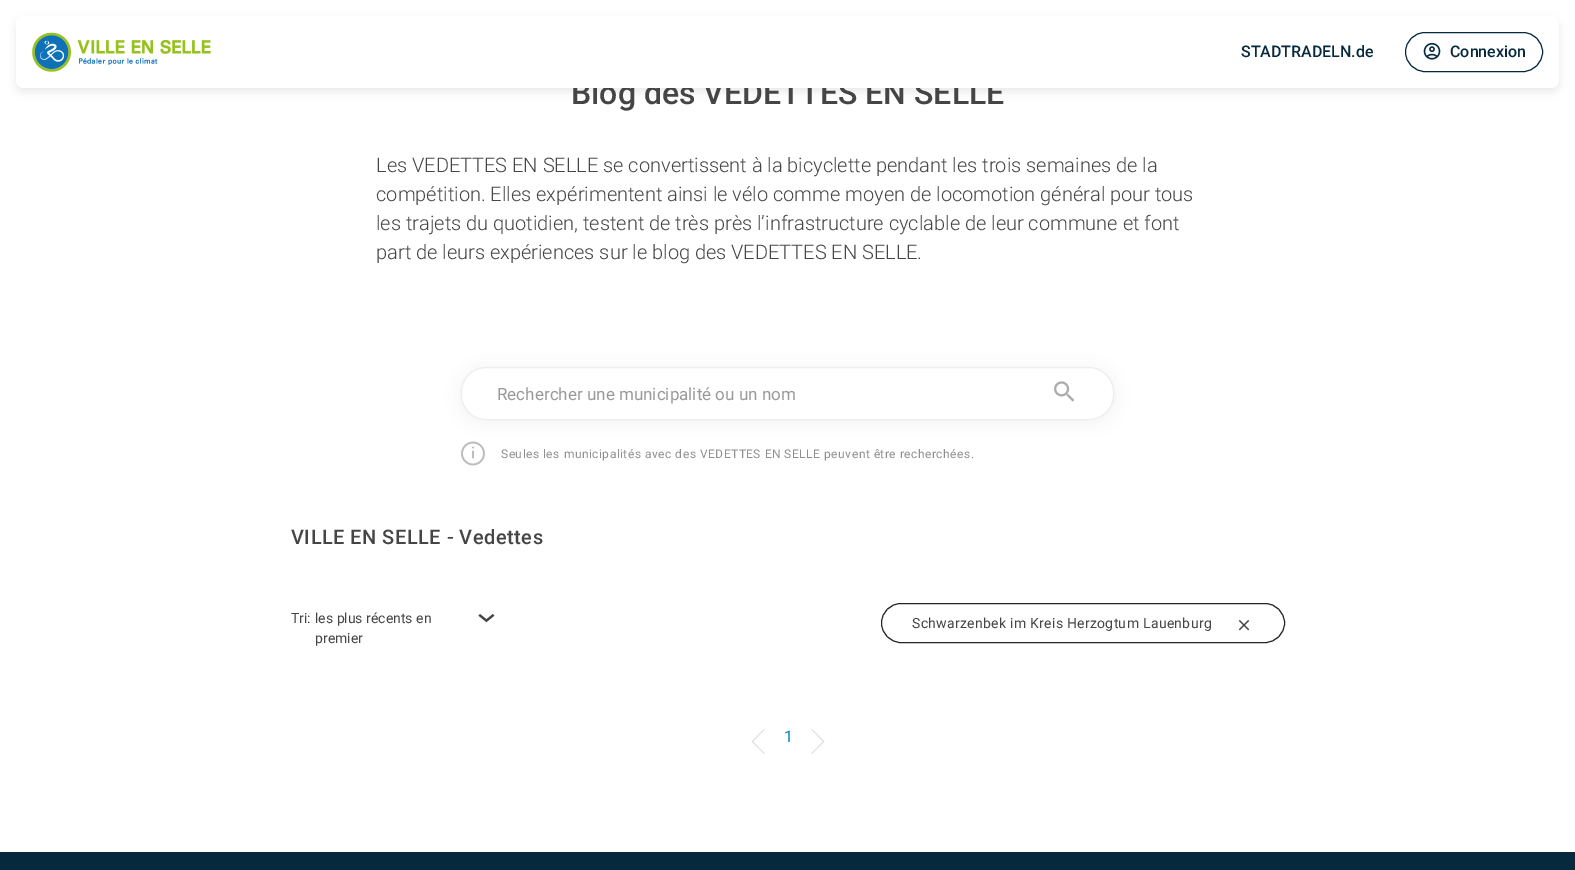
%!PS-Adobe-3.0
%%BoundingBox: 0 0 1575 870
%%LanguageLevel: 3
%%Pages: 1
%%EndComments
%%BeginProlog
/setink { dup -16 bitshift 255 div exch dup -8 bitshift 255 and 255 div exch 255 and 255 div setrgbcolor } def
/usefont { [ exch dup neg 0 0 3 -1 roll 0 0 ] selectfont } def
/setalpha { dup .setfillconstantalpha .setstrokeconstantalpha } def
/rrect { 5 dict begin { /r /h /w /y /x } { exch def } forall
  x r add y moveto x w add y 2 copy h add r arct x w add y h add x 1 index r arct
  x y h add x y r arct x y 2 copy exch w add exch r arct closepath end } def
/softshadow { 12 dict begin { /a /b /q /h /w /y /x } { exch def } forall gsave /was 0 def
  9 -2 -9 { dup b mul 4 div /e exch def 1 sub .425 mul 2.718 exch exp 1 add a .99 .min exch div /now exch def
    1 1 now sub 1 was sub div sub setalpha /was now def
    w h .min e 2 mul add 0 gt { x e sub y e sub w e 2 mul add h e 2 mul add
      q e add b .6 mul add w h .min 2 div e add .min 0 .max rrect fill } if } for grestore end } def
/drawimage { 5 dict begin { /h /w /y /x /name } { exch def } forall
  gsave x y translate w h scale
  w h 8 [w 0 0 h 0 0] name (r) file false 3 colorimage grestore end } def
%%EndProlog
%%BeginSetup
<< /PageSize [1575 870] /PageUsesTransparency true >> setpagedevice
%%EndSetup
%%Page: 1 1
0 .pushpdf14devicefilter
0 870 translate 1 -1 scale
4 setmiterlimit
16#FFFFFF setink
0 0 1575 870 rectfill
16#000000 setink
16 20 1543 72 8 4 0.08 softshadow
/Roboto-Medium 32 usefont
16#454545 setink
571 104 moveto (Blog des VEDETTES EN SELLE) show
16#FFFFFF setink
16 16 1543 72 8 rrect fill
(img1.raw) 32 32 179 40 drawimage
/Roboto-Medium 16 usefont
16#07293E setink
1241 57 moveto (STADTRADELN.de) show
1405.5 32.5 137 39 19.5 rrect stroke
(img2.raw) 1423 42 18 18 drawimage
1450 57 moveto (Connexion) show
/Roboto-Light 20 usefont
16#454545 setink
[
    [(Les VEDETTES EN SELLE se convertissent à la bicyclette pendant les trois semaines de la) 376 172]
    [(compétition. Elles expérimentent ainsi le vélo comme moyen de locomotion général pour tous) 376 201]
    [(les trajets du quotidien, testent de très près l’infrastructure cyclable de leur commune et font) 376 230]
    [(part de leurs expériences sur le blog des VEDETTES EN SELLE.) 376 259]
] { aload pop moveto show } forall
16#000000 setink
461 369 653 53 25 10 0.06 softshadow
16#FFFFFF setink
461.5 367.5 652 52 24.5 rrect gsave fill grestore
16#EFECEC setink
stroke
/Roboto-Regular 17 usefont
16#999999 setink
497 400 moveto (Rechercher une municipalité ou un nom) show
(img3.raw) 1054 381 21 21 drawimage
(img4.raw) 461 441 24 25 drawimage
/Roboto-Regular 12 usefont
16#8F8F8F setink
501 458 moveto 0.5 0 (Seules les municipalités avec des VEDETTES EN SELLE peuvent être recherchées.) ashow
/Roboto-Medium 20 usefont
16#454545 setink
291 544 moveto 0.5 0 (VILLE EN SELLE - Vedettes) ashow
/Roboto-Regular 14 usefont
[
    [(Tri:) 291 623]
    [(les plus récents en) 315 623]
    [(premier) 315 643]
] { aload pop moveto show } forall
(img5.raw) 478 614 17 9 drawimage
16#262626 setink
881.5 603.5 403 39 19.5 rrect stroke
16#454545 setink
912 628 moveto 0.3 0 (Schwarzenbek im Kreis Herzogtum Lauenburg) ashow
(img6.raw) 1238 620 12 11 drawimage
16#DDDDDD setink
751.5 741.5 moveto 764 754 lineto 764.5 753.5 lineto 753 741.5 lineto 764.5 729.5 lineto 764 729 lineto closepath fill
/Roboto-Regular 16 usefont
16#0086C5 setink
784 742 moveto (1) show
16#DDDDDD setink
824.5 741.5 moveto 812 729 lineto 811.5 729.5 lineto 823 741.5 lineto 811.5 753.5 lineto 812 754 lineto closepath fill
16#07293E setink
0 852 1575 18 rectfill
.poppdf14devicefilter showpage
%%EOF
